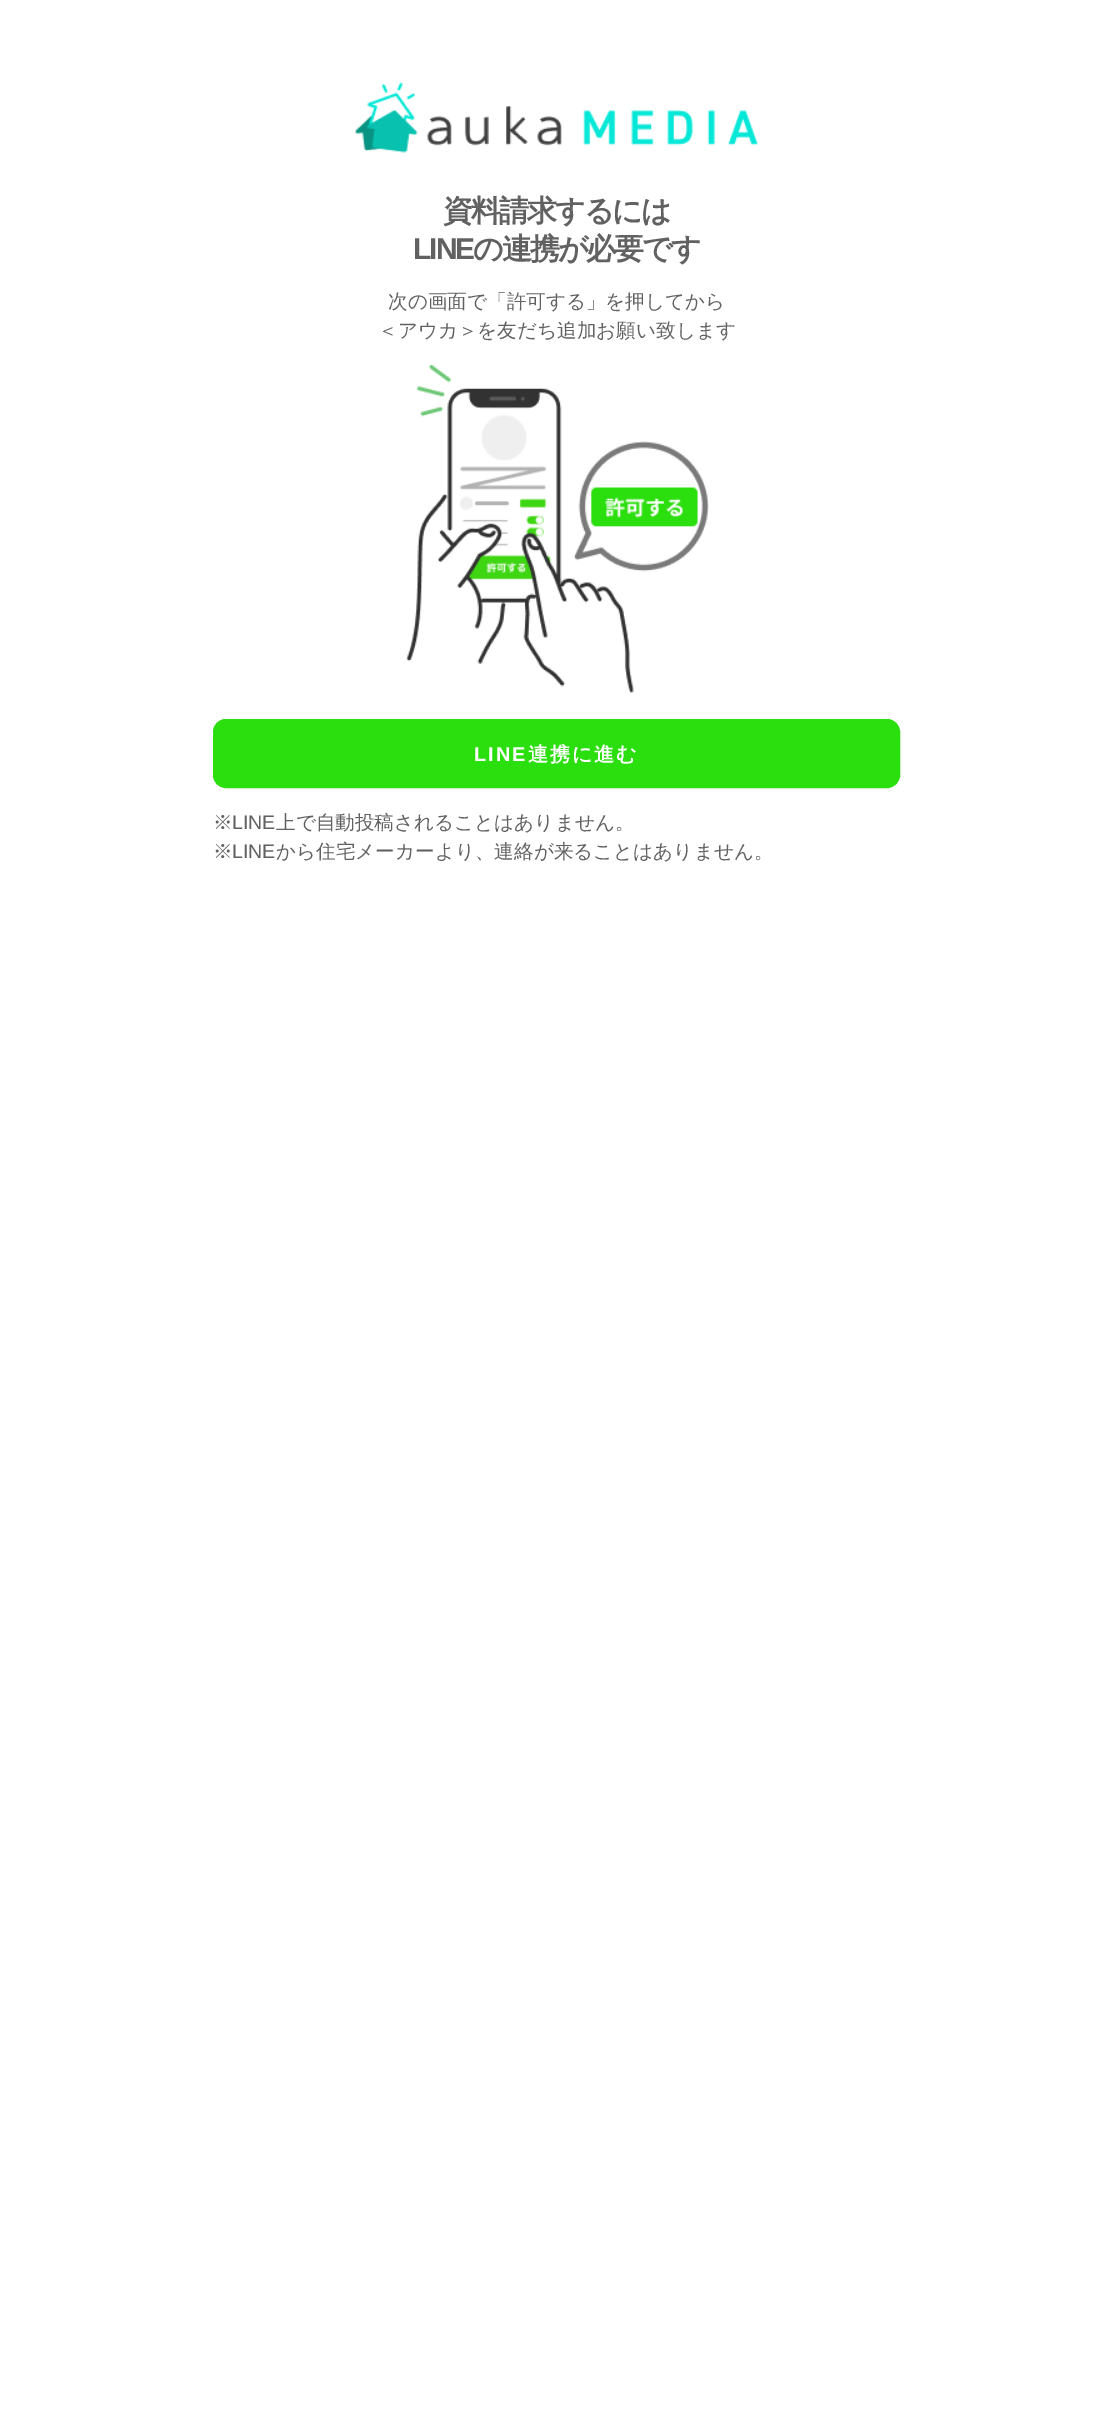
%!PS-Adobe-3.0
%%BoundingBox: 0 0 1112 2428
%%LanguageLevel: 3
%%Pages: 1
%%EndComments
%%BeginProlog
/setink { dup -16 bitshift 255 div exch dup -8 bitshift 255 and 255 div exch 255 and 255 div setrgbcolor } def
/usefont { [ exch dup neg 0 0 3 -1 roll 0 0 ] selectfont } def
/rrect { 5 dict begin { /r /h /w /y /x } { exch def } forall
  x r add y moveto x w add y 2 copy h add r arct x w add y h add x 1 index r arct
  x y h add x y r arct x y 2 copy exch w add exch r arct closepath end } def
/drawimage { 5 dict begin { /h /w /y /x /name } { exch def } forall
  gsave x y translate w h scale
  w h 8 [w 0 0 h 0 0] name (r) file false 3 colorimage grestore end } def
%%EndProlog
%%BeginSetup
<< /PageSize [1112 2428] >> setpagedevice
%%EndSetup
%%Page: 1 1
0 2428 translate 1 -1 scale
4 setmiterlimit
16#FFFFFF setink
0 0 1112 2428 rectfill
(img1.raw) 355 82 403 71 drawimage
/WenQuanYiZenHei-Bold 30 usefont
16#616161 setink
443 221 moveto -2 0 (資料請求するには) ashow
/LiberationSans-Bold 30 usefont
413 259 moveto -2 0 (LINE) ashow
/WenQuanYiZenHei-Bold 30 usefont
473 259 moveto -2 0 (の連携が必要です) ashow
/WenQuanYiZenHei-Medium 19.6 usefont
388 308 moveto (次の画面で「許可する」を押してから) show
378 337 moveto (＜アウカ＞を友だち追加お願い致します) show
(img2.raw) 406 365 303 328 drawimage
16#2BDE0E setink
213.5 719.5 686 68 12.5 rrect gsave fill grestore
stroke
/LiberationSans-Bold 20 usefont
16#FFFFFF setink
474 761 moveto 2 0 (LINE) ashow
/WenQuanYiZenHei-Bold 20 usefont
528 761 moveto 2 0 (連携に進む) ashow
/WenQuanYiZenHei-Medium 19.6 usefont
16#616161 setink
213 829 moveto (※) show
/LiberationSans-Regular 19.6 usefont
232 829 moveto (LINE) show
/WenQuanYiZenHei-Medium 19.6 usefont
276 829 moveto (上で自動投稿されることはありません。) show
213 858 moveto (※) show
/LiberationSans-Regular 19.6 usefont
232 858 moveto (LINE) show
/WenQuanYiZenHei-Medium 19.6 usefont
276 858 moveto (から住宅メーカーより、連絡が来ることはありません。) show
showpage
%%EOF
